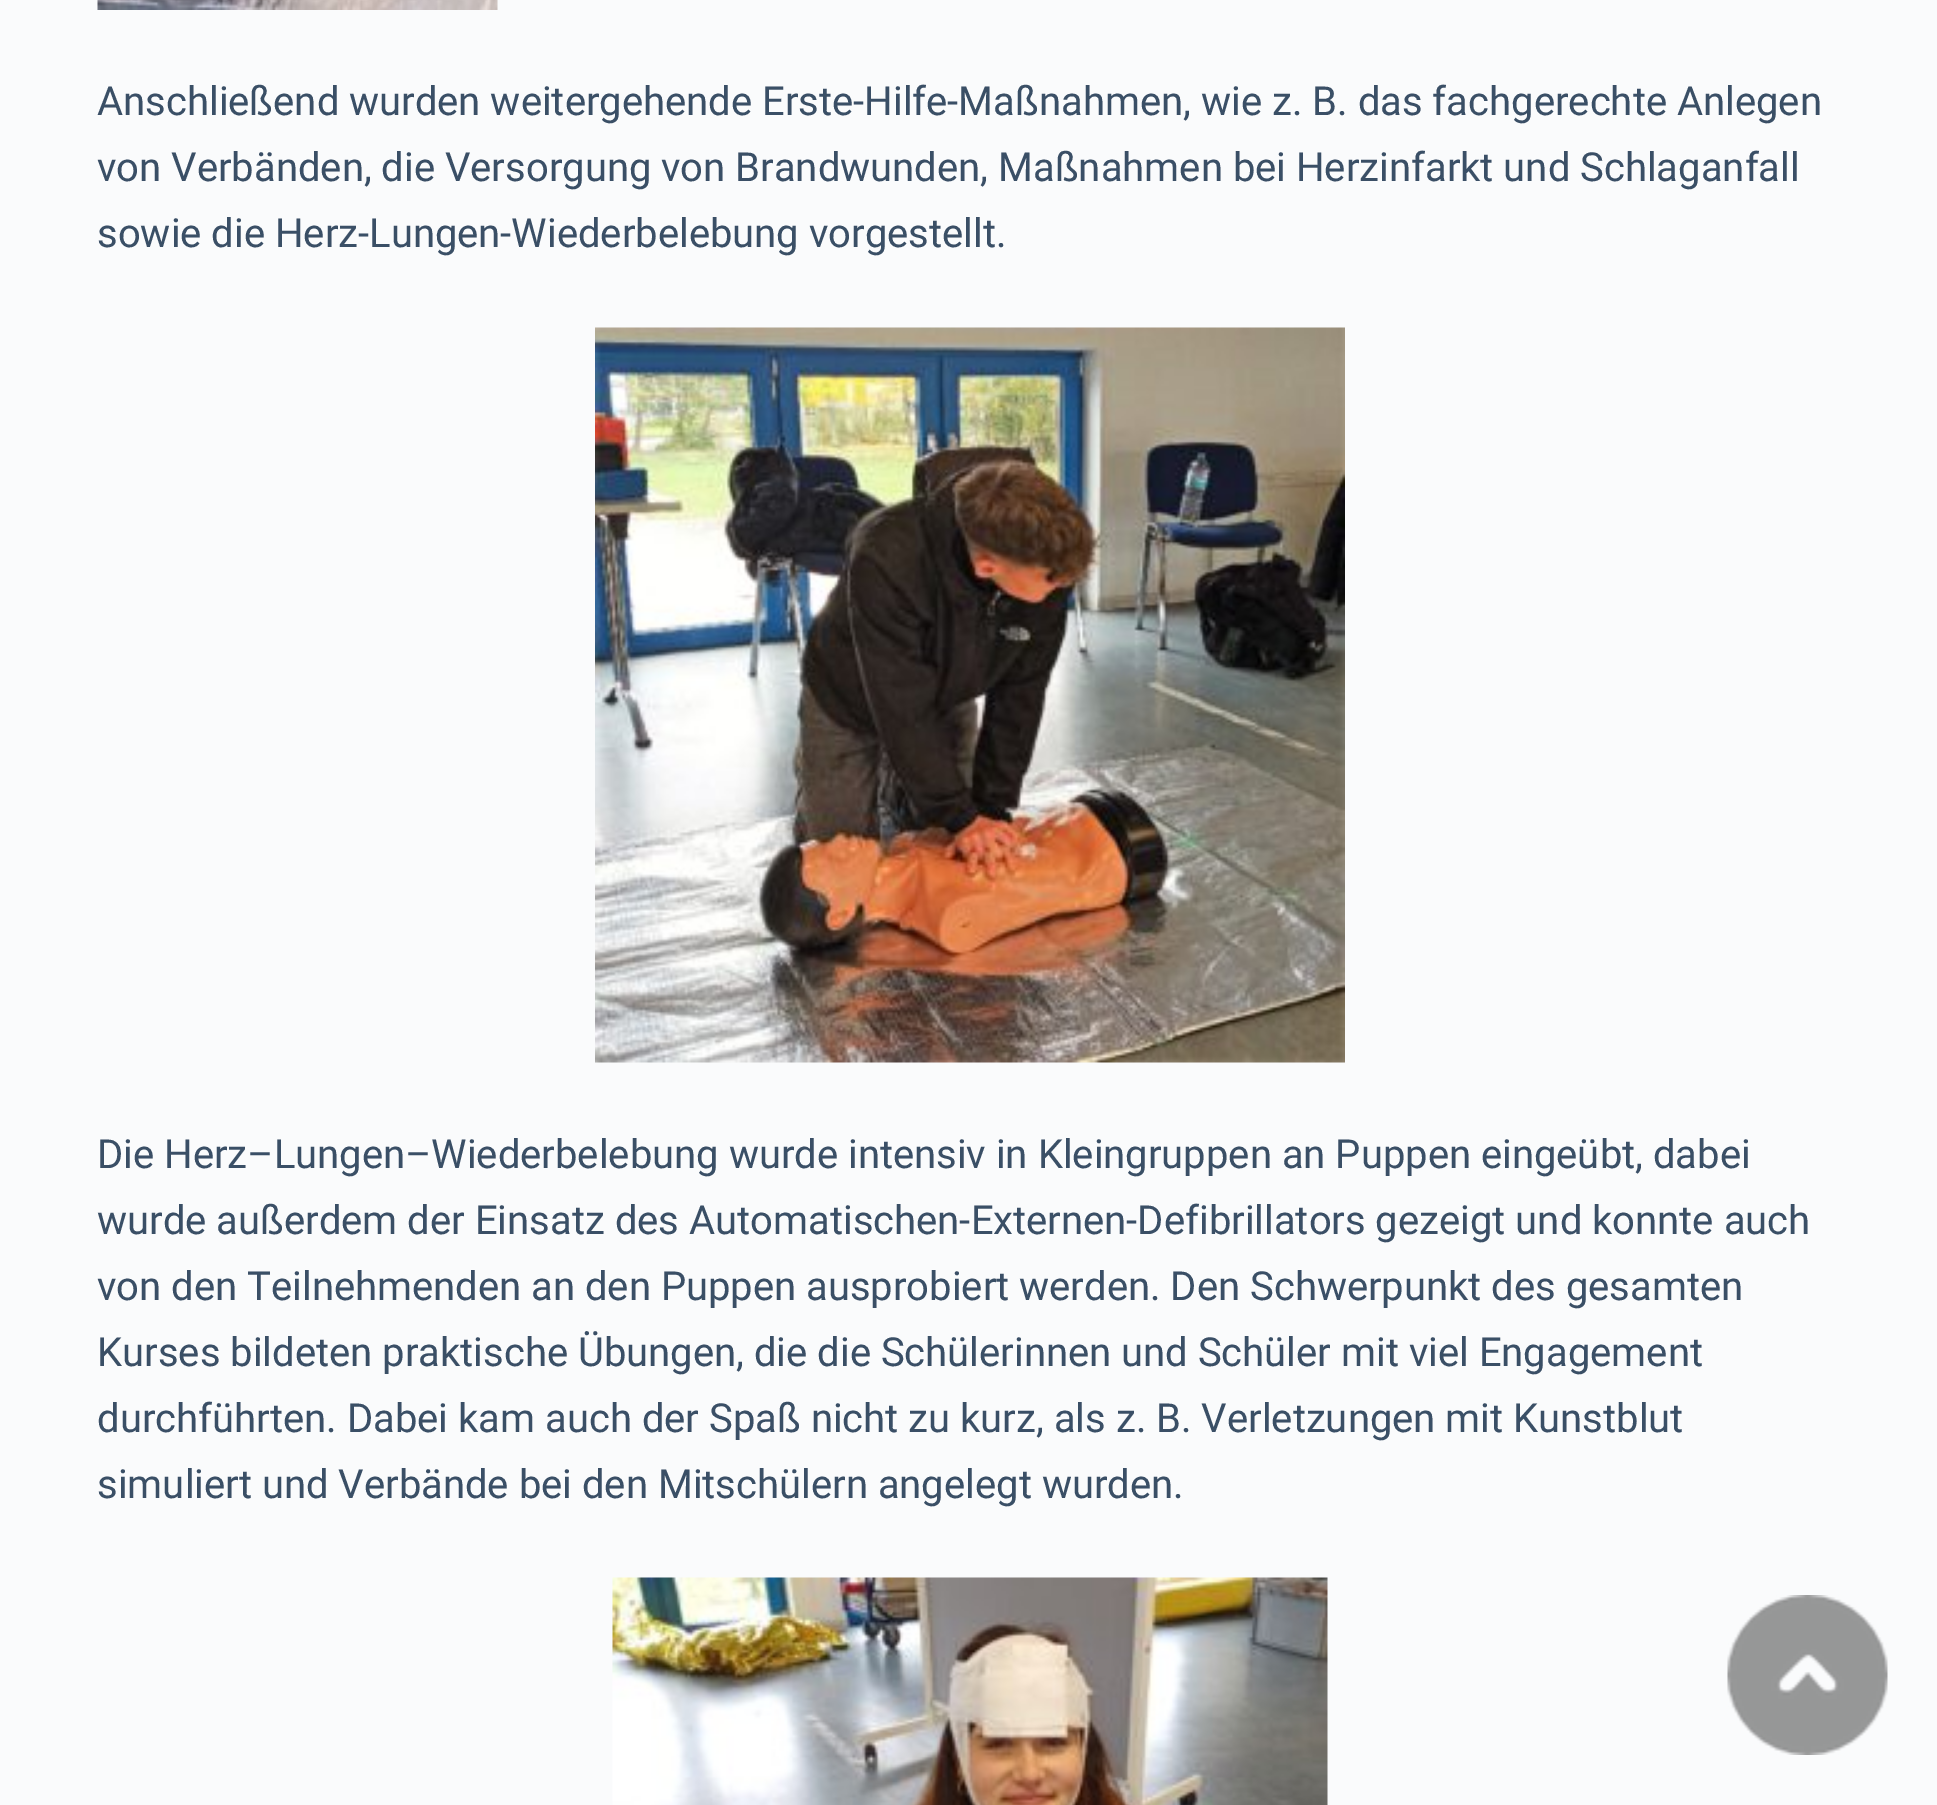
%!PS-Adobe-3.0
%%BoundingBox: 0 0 1937 1805
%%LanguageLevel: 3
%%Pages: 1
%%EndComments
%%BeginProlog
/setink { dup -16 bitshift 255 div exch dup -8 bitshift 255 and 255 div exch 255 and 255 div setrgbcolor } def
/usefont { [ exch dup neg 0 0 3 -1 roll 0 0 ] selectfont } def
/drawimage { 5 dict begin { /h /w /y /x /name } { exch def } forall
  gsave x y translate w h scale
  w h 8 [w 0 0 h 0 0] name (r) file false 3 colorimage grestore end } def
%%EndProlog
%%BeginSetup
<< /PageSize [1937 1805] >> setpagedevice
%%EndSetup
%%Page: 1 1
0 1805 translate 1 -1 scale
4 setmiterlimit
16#FAFBFC setink
0 0 1937 1805 rectfill
(img1.raw) 97 0 401 10 drawimage
/Roboto-Regular 40 usefont
16#3A4F66 setink
[
    [(Anschließend wurden weitergehende Erste-Hilfe-Maßnahmen, wie z. B. das fachgerechte Anlegen) 97 115]
    [(von Verbänden, die Versorgung von Brandwunden, Maßnahmen bei Herzinfarkt und Schlaganfall) 97 181]
    [(sowie die Herz-Lungen-Wiederbelebung vorgestellt.) 97 247]
] { aload pop moveto show } forall
(img2.raw) 595 327 750 736 drawimage
[
    [(Die Herz–Lungen–Wiederbelebung wurde intensiv in Kleingruppen an Puppen eingeübt, dabei) 97 1168]
    [(wurde außerdem der Einsatz des Automatischen-Externen-Defibrillators gezeigt und konnte auch) 97 1234]
    [(von den Teilnehmenden an den Puppen ausprobiert werden. Den Schwerpunkt des gesamten) 97 1300]
    [(Kurses bildeten praktische Übungen, die die Schülerinnen und Schüler mit viel Engagement) 97 1366]
    [(durchführten. Dabei kam auch der Spaß nicht zu kurz, als z. B. Verletzungen mit Kunstblut) 97 1432]
    [(simuliert und Verbände bei den Mitschülern angelegt wurden.) 97 1498]
] { aload pop moveto show } forall
(img3.raw) 612 1577 716 228 drawimage
(img4.raw) 1727 1595 161 160 drawimage
showpage
%%EOF
